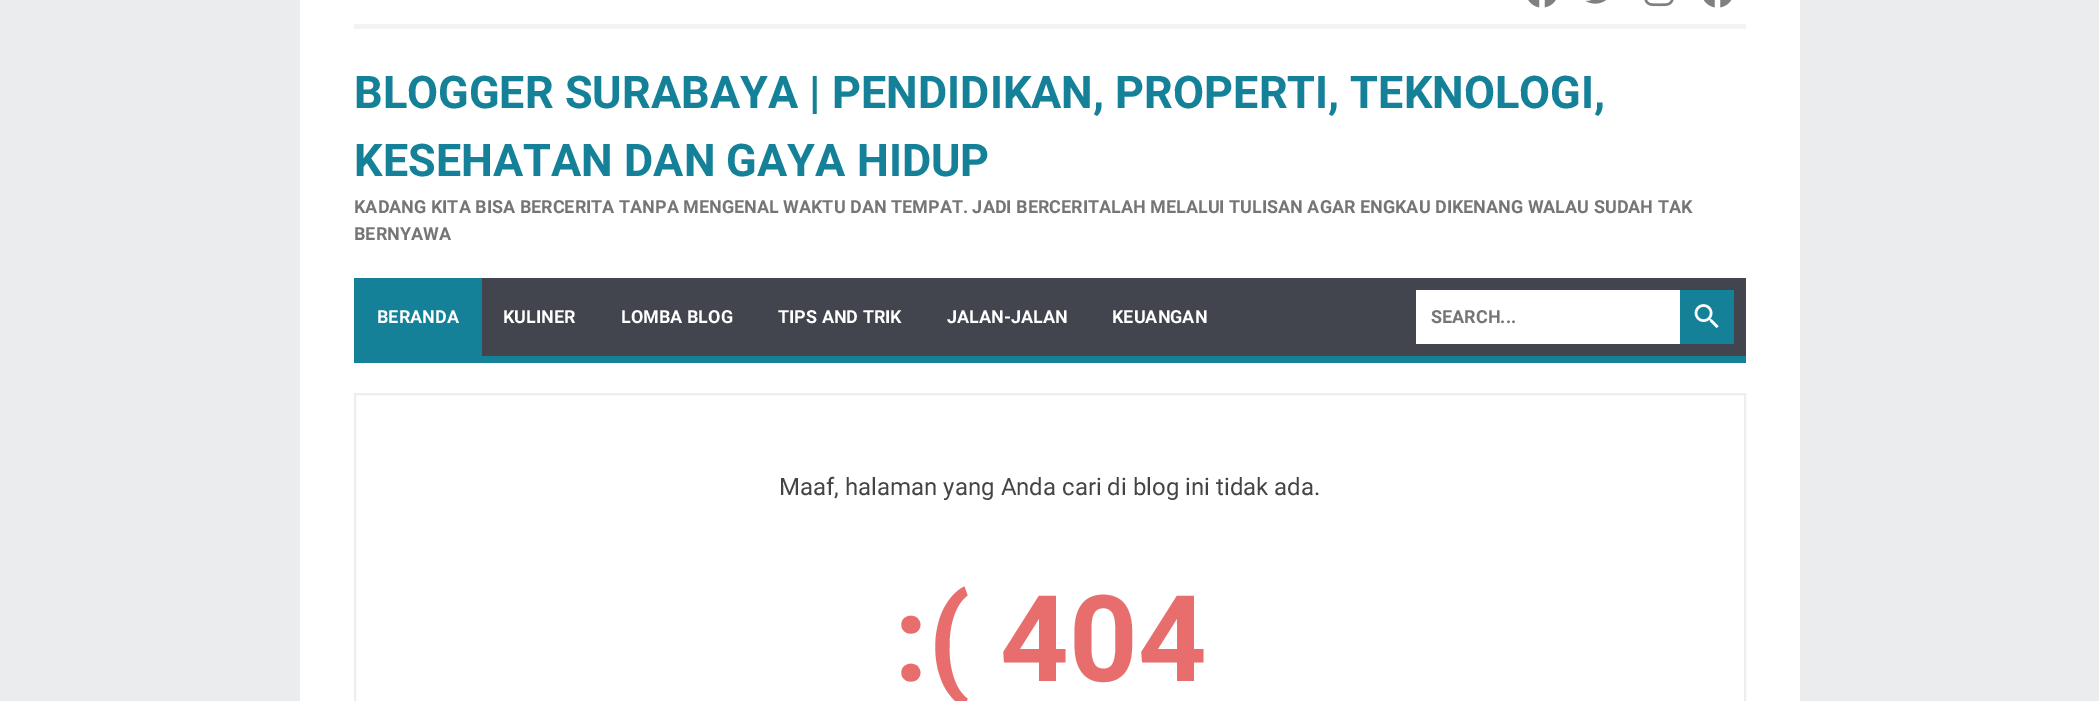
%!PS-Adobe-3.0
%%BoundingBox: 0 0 2099 701
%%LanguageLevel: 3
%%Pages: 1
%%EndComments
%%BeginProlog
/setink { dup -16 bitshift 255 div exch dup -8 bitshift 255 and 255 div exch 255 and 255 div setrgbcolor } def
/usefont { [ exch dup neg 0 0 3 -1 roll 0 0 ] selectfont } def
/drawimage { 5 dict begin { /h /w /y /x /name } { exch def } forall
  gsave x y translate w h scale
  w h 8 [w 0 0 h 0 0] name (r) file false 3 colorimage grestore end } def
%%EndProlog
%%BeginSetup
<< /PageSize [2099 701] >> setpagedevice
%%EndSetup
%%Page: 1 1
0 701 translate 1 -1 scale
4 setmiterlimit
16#EAECED setink
0 0 2099 701 rectfill
16#FFFFFF setink
300 0 1500 701 rectfill
16#F3F3F3 setink
354 24 1392 5 rectfill
(img1.raw) 1528 0 28 8 drawimage
(img2.raw) 1585 0 21 4 drawimage
(img3.raw) 1644 0 30 7 drawimage
(img4.raw) 1703 0 29 8 drawimage
/Roboto-Bold 45 usefont
16#148199 setink
354 108 moveto (BLOGGER SURABAYA | PENDIDIKAN, PROPERTI, TEKNOLOGI,) show
354 176 moveto (KESEHATAN DAN GAYA HIDUP) show
/Roboto-Bold 18 usefont
16#757575 setink
354 213 moveto (KADANG KITA BISA BERCERITA TANPA MENGENAL WAKTU DAN TEMPAT. JADI BERCERITALAH MELALUI TULISAN AGAR ENGKAU DIKENANG WALAU SUDAH TAK) show
354 240 moveto (BERNYAWA) show
16#42454E setink
482 278 1264 78 rectfill
16#148199 setink
354 278 128 78 rectfill
16#FFFFFF setink
[
    [(BERANDA) 377 323]
    [(KULINER) 503 323]
    [(LOMBA BLOG) 621 323]
    [(TIPS AND TRIK) 778 323]
    [(JALAN-JALAN) 947 323]
    [(KEUANGAN) 1112 323]
] { aload pop moveto show } forall
1416 290 264 54 rectfill
16#757575 setink
1431 323 moveto (SEARCH...) show
16#148199 setink
1680 290 54 54 rectfill
(img5.raw) 1694 304 25 25 drawimage
354 356 1392 7 rectfill
16#EEEEEE setink
2 setlinewidth
355 394 1390 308 rectstroke
/Roboto-Regular 24 usefont
16#444444 setink
779 495 moveto (Maaf, halaman yang Anda cari di blog ini tidak ada.) show
/Roboto-Bold 120 usefont
16#E86E6E setink
894 681 moveto (:\( 404) show
showpage
%%EOF
